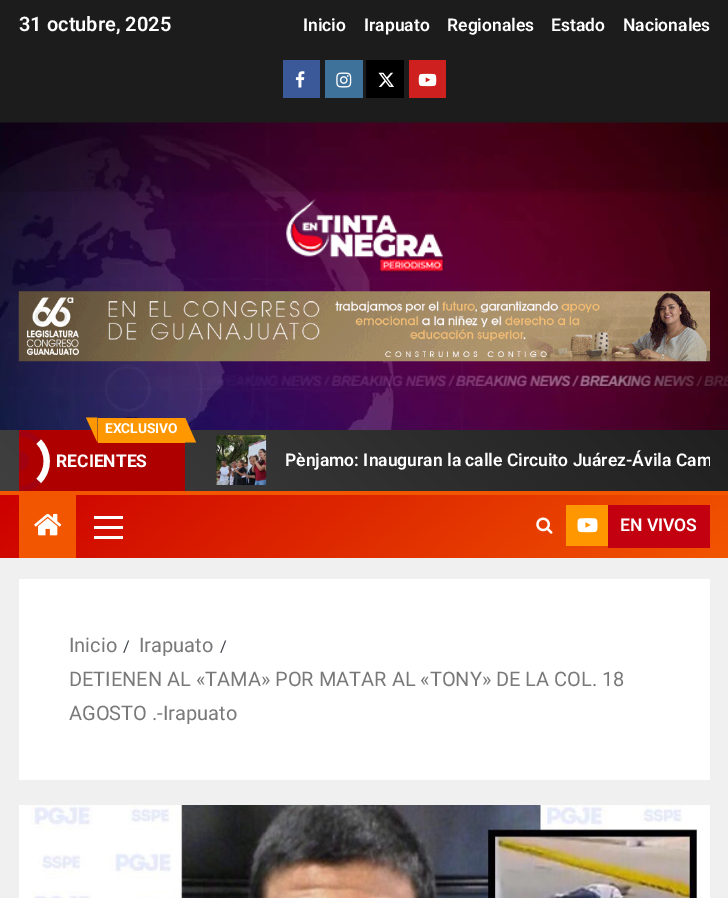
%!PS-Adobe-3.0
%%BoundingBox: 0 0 728 898
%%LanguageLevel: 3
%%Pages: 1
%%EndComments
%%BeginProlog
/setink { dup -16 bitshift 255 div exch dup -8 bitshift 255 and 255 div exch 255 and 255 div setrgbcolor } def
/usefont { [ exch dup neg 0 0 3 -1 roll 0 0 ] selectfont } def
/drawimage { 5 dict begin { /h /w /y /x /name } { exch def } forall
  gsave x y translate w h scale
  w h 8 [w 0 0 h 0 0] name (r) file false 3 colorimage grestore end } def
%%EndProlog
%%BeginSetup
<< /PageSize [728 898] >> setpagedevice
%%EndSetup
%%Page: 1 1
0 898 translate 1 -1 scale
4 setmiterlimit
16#F0F0F0 setink
0 0 728 898 rectfill
16#1C1C1C setink
0 0 728 123 rectfill
/Roboto-SemiBold 20 usefont
16#FFFFFF setink
19 31 moveto (31 octubre, 2025) show
/Roboto-SemiBold 17.5 usefont
[
    [(Inicio) 303 31]
    [(Irapuato) 364 31]
    [(Regionales) 447 31]
    [(Estado) 551 31]
    [(Nacionales) 623 31]
] { aload pop moveto show } forall
16#3B5999 setink
283 60 37 38 rectfill
(img1.raw) 295 71 10 17 drawimage
16#3F729B setink
325 60 38 38 rectfill
(img2.raw) 336 72 16 16 drawimage
16#000000 setink
366 60 38 38 rectfill
(img3.raw) 378 72 16 15 drawimage
16#CD201F setink
409 60 37 38 rectfill
(img4.raw) 418 73 19 14 drawimage
(img5.raw) 0 122 728 308 drawimage
(img6.raw) 286 198 158 75 drawimage
(img7.raw) 18 291 692 71 drawimage
gsave 0 430 moveto 728 430 lineto 728 491 lineto 0 491 lineto closepath clip newpath
<< /ShadingType 2 /ColorSpace /DeviceRGB /Coords [167 658 562 263] /Extend [true true] /Function << /FunctionType 2 /Domain [0 1] /C0 [0.251 0.251 0.251] /C1 [0.125 0.125 0.125] /N 1 >> >> shfill grestore
16#AF0000 setink
19 430 166 61 rectfill
16#FF9800 setink
98 418 87 25 rectfill
86 417.5 moveto 97.5 417.5 lineto 97.5 442.5 lineto closepath fill
/Roboto-Bold 13.75 usefont
16#FFFFFF setink
105 433 moveto (EXCLUSIVO) show
16#FF9800 setink
196 442.5 moveto 185 442.5 lineto 185 417.5 lineto closepath fill
16#FFFFFF setink
6.2 setlinewidth
38.5 441.5 moveto 49.5 452 49.5 470.5 38.5 481 curveto stroke
gsave
19 430 166 61 rectclip
16#A2020F setink
-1 441.5 moveto 9.5 430.5 28 430.5 38.5 441.5 curveto 38.5 481 moveto 28 492 9.5 492 -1 481 curveto stroke
grestore
16#A2020F setink
19 451 moveto 24.5 451 29 455.5 29 461 curveto 29 466.5 24.5 471 19 471 curveto closepath fill
/Roboto-Bold 17.5 usefont
16#FFFFFF setink
56 467 moveto (RECIENTES) show
(img8.raw) 216 435 51 50 drawimage
gsave
191 435 519 50 rectclip
/Roboto-SemiBold 17.5 usefont
285 466 moveto (Pènjamo: Inauguran la calle Circuito Juárez-Ávila Cam) show
grestore
gsave 0 495 moveto 728 495 lineto 728 558 lineto 0 558 lineto closepath clip newpath
<< /ShadingType 2 /ColorSpace /DeviceRGB /Coords [198 328 530 724] /Extend [true true] /Function << /FunctionType 2 /Domain [0 1] /C0 [0.8 0 0] /C1 [0.949 0.337 0] /N 1 >> >> shfill grestore
16#F25600 setink
0 491 728 4 rectfill
19 495 57 63 rectfill
(img9.raw) 34 513 28 23 drawimage
[
    [94 526 29 3 16#FFFFFF]
    [94 516 29 3 16#FFFFFF]
    [94 536 29 3 16#FFFFFF]
] { aload pop setink rectfill } forall
(img10.raw) 536 517 17 17 drawimage
16#FF9800 setink
566 505 42 41 rectfill
(img11.raw) 577 518 21 15 drawimage
16#C30010 setink
608 505 102 43 rectfill
/Roboto-SemiBold 17.5 usefont
16#FFFFFF setink
620 531 moveto (EN VIVOS) show
19 579 691 201 rectfill
/Roboto-Regular 20 usefont
16#797979 setink
69 652 moveto (Inicio) show
/Roboto-Regular 16 usefont
16#393E46 setink
123 652 moveto (/) show
/Roboto-Regular 20 usefont
16#797979 setink
139 652 moveto (Irapuato) show
/Roboto-Regular 16 usefont
16#393E46 setink
220 652 moveto (/) show
/Roboto-Regular 20 usefont
16#797979 setink
69 686 moveto (DETIENEN AL «TAMA» POR MATAR AL «TONY» DE LA COL. 18) show
69 720 moveto (AGOSTO .-Irapuato) show
16#FFFFFF setink
19 805 691 93 rectfill
(img12.raw) 31 805 670 93 drawimage
showpage
%%EOF
